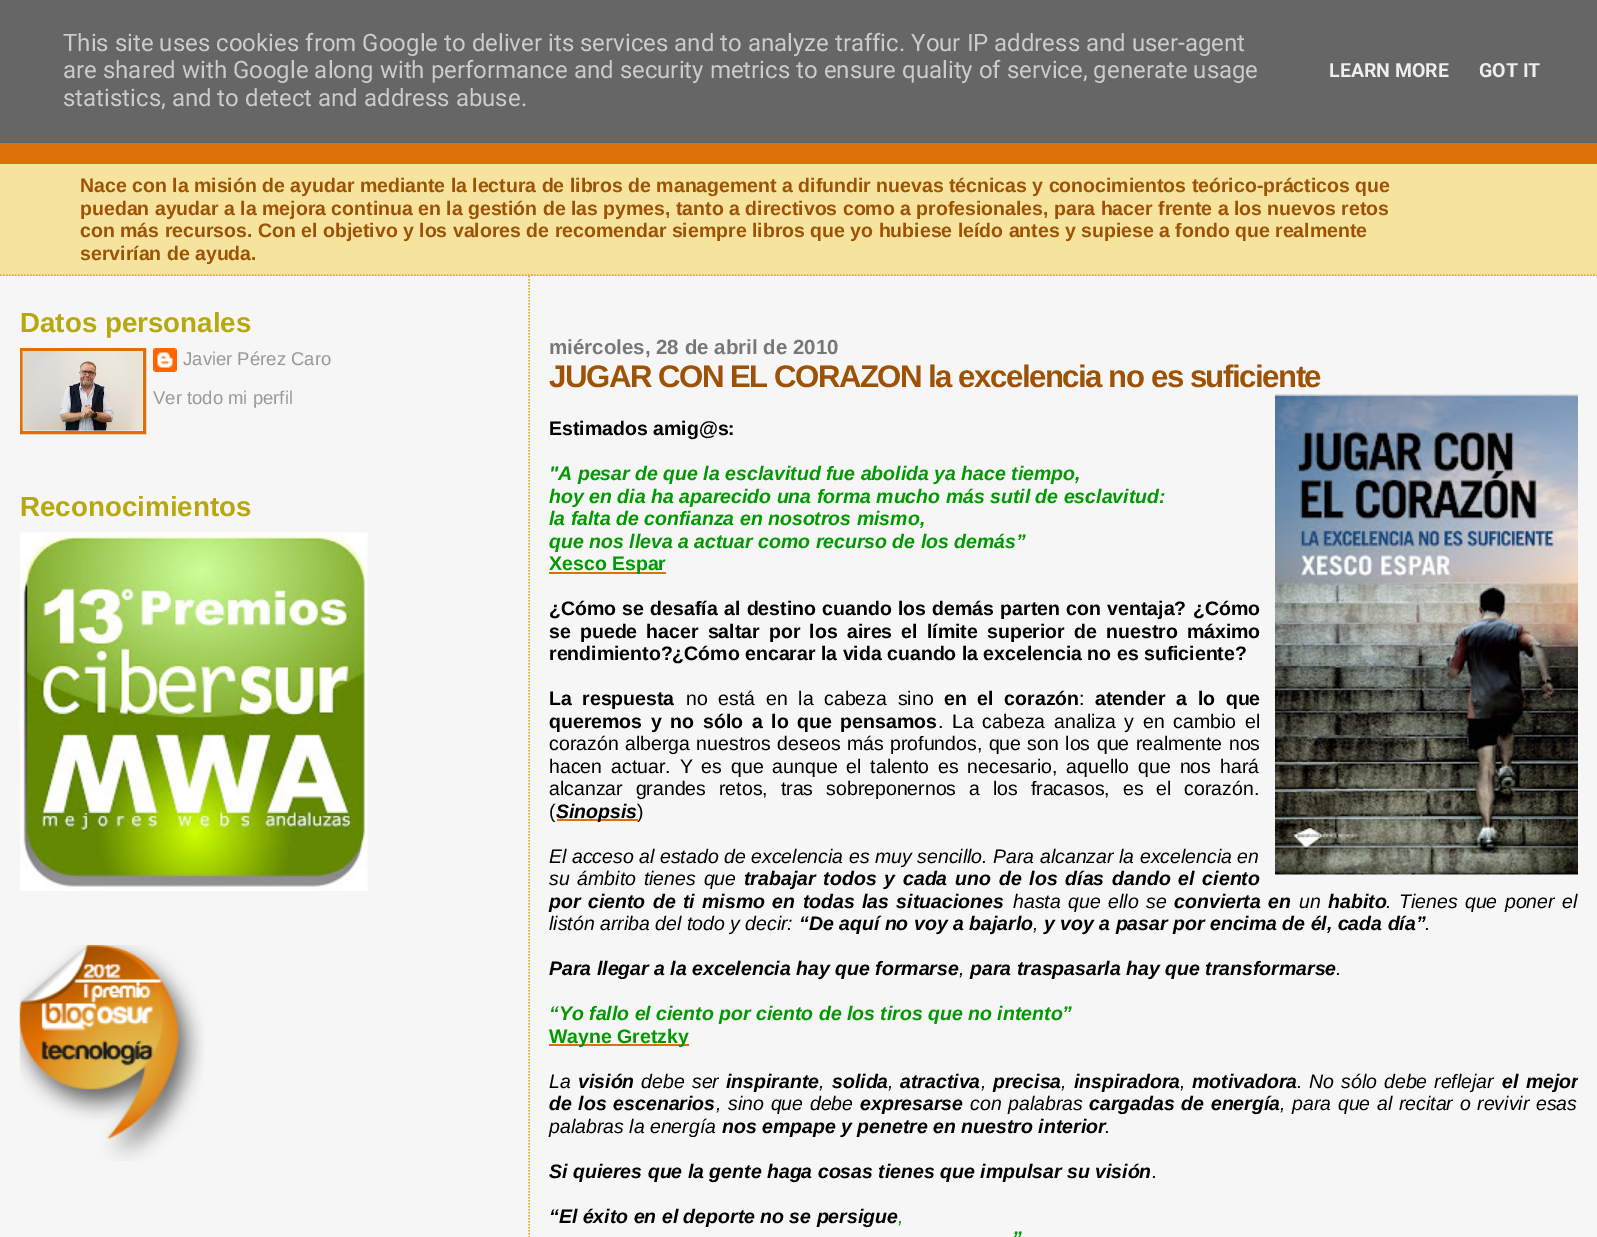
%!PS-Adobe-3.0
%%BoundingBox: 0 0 1597 1237
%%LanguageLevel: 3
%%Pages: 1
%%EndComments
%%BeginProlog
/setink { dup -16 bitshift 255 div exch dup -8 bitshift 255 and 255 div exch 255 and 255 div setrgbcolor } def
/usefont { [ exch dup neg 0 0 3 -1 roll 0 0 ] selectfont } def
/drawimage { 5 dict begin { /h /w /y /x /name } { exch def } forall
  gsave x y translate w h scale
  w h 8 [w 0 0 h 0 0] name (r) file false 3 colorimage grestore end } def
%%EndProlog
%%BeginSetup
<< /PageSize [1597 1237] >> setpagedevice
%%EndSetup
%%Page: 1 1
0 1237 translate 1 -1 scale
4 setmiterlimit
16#F6F6F6 setink
0 0 1597 1237 rectfill
16#666666 setink
0 0 1597 143 rectfill
/Roboto-Regular 24 usefont
16#CCCCCC setink
[
    [(This site uses cookies from Google to deliver its services and to analyze traffic. Your IP address and user-agent) 63 51]
    [(are shared with Google along with performance and security metrics to ensure quality of service, generate usage) 63 78]
    [(statistics, and to detect and address abuse.) 63 106]
] { aload pop moveto show } forall
/Roboto-Bold 19.5 usefont
16#EEEEEE setink
1329 77 moveto (LEARN MORE) show
1479 77 moveto (GOT IT) show
16#F5E39E setink
0 164 1597 112 rectfill
16#E0AD12 setink
1.5 setlinewidth
[1.5 1.5] 0 setdash
0 275 moveto 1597.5 275 lineto stroke
16#DE7008 setink
0 143 1597 21 rectfill
/LiberationSans-Bold 19.5 usefont
16#9E5205 setink
[
    [(Nace con la misión de ayudar mediante la lectura de libros de management a difundir nuevas técnicas y conocimientos teórico-prácticos que) 80 192]
    [(puedan ayudar a la mejora continua en la gestión de las pymes, tanto a directivos como a profesionales, para hacer frente a los nuevos retos) 80 215]
    [(con más recursos. Con el objetivo y los valores de recomendar siempre libros que yo hubiese leído antes y supiese a fondo que realmente) 80 237]
    [(servirían de ayuda.) 80 260]
] { aload pop moveto show } forall
/LiberationSans-Bold 27.75 usefont
16#B8A80D setink
20 332 moveto (Datos personales) show
16#DE7008 setink
3 setlinewidth
[] 0 setdash
21.5 349.5 123 83 rectstroke
(img1.raw) 22 351 121 80 drawimage
(img2.raw) 153 348 24 24 drawimage
/LiberationSans-Regular 18.5 usefont
16#999999 setink
183 365 moveto (Javier Pérez Caro) show
153 404 moveto (Ver todo mi perfil) show
/LiberationSans-Bold 27.75 usefont
16#B8A80D setink
20 516 moveto (Reconocimientos) show
(img3.raw) 20 532 348 359 drawimage
(img4.raw) 19 945 185 216 drawimage
16#E0AD12 setink
1.5 setlinewidth
[1.5 1.5] 0 setdash
529 276 moveto 529 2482.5 lineto stroke
/LiberationSans-Bold 20.5 usefont
16#777777 setink
549 354 moveto (miércoles, 28 de abril de 2010) show
/LiberationSans-Bold 31.2 usefont
16#9E5205 setink
549 387 moveto -1.5 0 (JUGAR CON EL CORAZON la excelencia no es suficiente) ashow
(img5.raw) 1275 394 303 481 drawimage
/LiberationSans-Bold 19.5 usefont
16#000000 setink
549 435 moveto (Estimados amig@s:) show
/LiberationSans-BoldItalic 19.5 usefont
16#009900 setink
[
    [("A pesar de que la esclavitud fue abolida ya hace tiempo,) 549 480]
    [(hoy en dia ha aparecido una forma mucho más sutil de esclavitud:) 549 503]
    [(la falta de confianza en nosotros mismo,) 549 525]
    [(que nos lleva a actuar como recurso de los demás”) 549 548]
] { aload pop moveto show } forall
16#DE7008 setink
549 572 117 2 rectfill
/LiberationSans-Bold 19.5 usefont
16#009900 setink
549 570 moveto (Xesco Espar) show
16#000000 setink
549 615 moveto 0.9 0 32 (¿Cómo se desafía al destino cuando los demás parten con ventaja? ¿Cómo) widthshow
549 638 moveto 3.75 0 32 (se puede hacer saltar por los aires el límite superior de nuestro máximo) widthshow
549 660 moveto (rendimiento?¿Cómo encarar la vida cuando la excelencia no es suficiente?) show
549 705 moveto 5 0 32 (La respuesta) widthshow
/LiberationSans-Regular 19.5 usefont
686 705 moveto 5.25 0 32 (no está en la cabeza sino) widthshow
/LiberationSans-Bold 19.5 usefont
944 705 moveto 5.25 0 32 (en el corazón) widthshow
/LiberationSans-Regular 19.5 usefont
1079 705 moveto (:) show
/LiberationSans-Bold 19.5 usefont
1095 705 moveto 5.25 0 32 (atender a lo que) widthshow
549 728 moveto 3.25 0 32 (queremos y no sólo a lo que pensamos) widthshow
/LiberationSans-Regular 19.5 usefont
938 728 moveto 3.25 0 32 (. La cabeza analiza y en cambio el) widthshow
549 750 moveto 1 0 32 (corazón alberga nuestros deseos más profundos, que son los que realmente nos) widthshow
549 773 moveto 3.5 0 32 (hacen actuar. Y es que aunque el talento es necesario, aquello que nos hará) widthshow
549 795 moveto 7.5 0 32 (alcanzar grandes retos, tras sobreponernos a los fracasos, es el corazón.) widthshow
549 818 moveto (\() show
16#DE7008 setink
557 819 81 2 rectfill
/LiberationSans-BoldItalic 19.5 usefont
16#000000 setink
556 818 moveto (Sinopsis) show
/LiberationSans-Regular 19.5 usefont
637 818 moveto (\)) show
/LiberationSans-Italic 19.5 usefont
549 863 moveto 0.1 0 32 (El acceso al estado de excelencia es muy sencillo. Para alcanzar la excelencia en) widthshow
549 885 moveto 2.4 0 32 (su ámbito tienes que) widthshow
/LiberationSans-BoldItalic 19.5 usefont
744 885 moveto 2.4 0 32 (trabajar todos y cada uno de los días dando el ciento) widthshow
549 908 moveto 2 0 32 (por ciento de ti mismo en todas las situaciones) widthshow
/LiberationSans-Italic 19.5 usefont
1013 908 moveto 2 0 32 (hasta que ello se) widthshow
/LiberationSans-BoldItalic 19.5 usefont
1174 908 moveto 2 0 32 (convierta en) widthshow
/LiberationSans-Italic 19.5 usefont
1299 908 moveto (un) show
/LiberationSans-BoldItalic 19.5 usefont
1328 908 moveto (habito) show
/LiberationSans-Italic 19.5 usefont
1386 908 moveto 2 0 32 (. Tienes que poner el) widthshow
549 930 moveto (listón arriba del todo y decir:) show
/LiberationSans-BoldItalic 19.5 usefont
799 930 moveto (“De aquí no voy a bajarlo) show
/LiberationSans-Italic 19.5 usefont
1033 930 moveto (,) show
/LiberationSans-BoldItalic 19.5 usefont
1044 930 moveto (y voy a pasar por encima de él, cada día”) show
/LiberationSans-Italic 19.5 usefont
1425 930 moveto (.) show
/LiberationSans-BoldItalic 19.5 usefont
549 975 moveto (Para llegar a la excelencia hay que formarse) show
/LiberationSans-Italic 19.5 usefont
959 975 moveto (,) show
/LiberationSans-BoldItalic 19.5 usefont
970 975 moveto (para traspasarla hay que transformarse) show
/LiberationSans-Italic 19.5 usefont
1336 975 moveto (.) show
/LiberationSans-BoldItalic 19.5 usefont
16#009900 setink
549 1020 moveto (“Yo fallo el ciento por ciento de los tiros que no intento”) show
16#DE7008 setink
549 1044 140 2 rectfill
/LiberationSans-Bold 19.5 usefont
16#009900 setink
549 1043 moveto (Wayne Gretzky) show
/LiberationSans-Italic 19.5 usefont
16#000000 setink
549 1088 moveto (La) show
/LiberationSans-BoldItalic 19.5 usefont
578 1088 moveto (visión) show
/LiberationSans-Italic 19.5 usefont
641 1088 moveto 2 0 32 (debe ser) widthshow
/LiberationSans-BoldItalic 19.5 usefont
726 1088 moveto (inspirante) show
/LiberationSans-Italic 19.5 usefont
819 1088 moveto (,) show
/LiberationSans-BoldItalic 19.5 usefont
832 1088 moveto (solida) show
/LiberationSans-Italic 19.5 usefont
888 1088 moveto (,) show
/LiberationSans-BoldItalic 19.5 usefont
900 1088 moveto (atractiva) show
/LiberationSans-Italic 19.5 usefont
981 1088 moveto (,) show
/LiberationSans-BoldItalic 19.5 usefont
993 1088 moveto (precisa) show
/LiberationSans-Italic 19.5 usefont
1061 1088 moveto (,) show
/LiberationSans-BoldItalic 19.5 usefont
1074 1088 moveto (inspiradora) show
/LiberationSans-Italic 19.5 usefont
1180 1088 moveto (,) show
/LiberationSans-BoldItalic 19.5 usefont
1192 1088 moveto (motivadora) show
/LiberationSans-Italic 19.5 usefont
1297 1088 moveto 1.5 0 32 (. No sólo debe reflejar) widthshow
gsave
530 276 1048 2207 rectclip
/LiberationSans-BoldItalic 19.5 usefont
1502 1088 moveto 2 0 32 (el mejor) widthshow
grestore
/LiberationSans-BoldItalic 19.5 usefont
549 1110 moveto 1.25 0 32 (de los escenarios) widthshow
/LiberationSans-Italic 19.5 usefont
716 1110 moveto 1.25 0 32 (, sino que debe) widthshow
/LiberationSans-BoldItalic 19.5 usefont
860 1110 moveto (expresarse) show
/LiberationSans-Italic 19.5 usefont
970 1110 moveto 1.25 0 32 (con palabras) widthshow
/LiberationSans-BoldItalic 19.5 usefont
1089 1110 moveto 1.25 0 32 (cargadas de energía) widthshow
/LiberationSans-Italic 19.5 usefont
1280 1110 moveto 1.25 0 32 (, para que al recitar o revivir esas) widthshow
549 1133 moveto (palabras la energía) show
/LiberationSans-BoldItalic 19.5 usefont
722 1133 moveto (nos empape y penetre en nuestro interior) show
/LiberationSans-Italic 19.5 usefont
1105 1133 moveto (.) show
/LiberationSans-BoldItalic 19.5 usefont
549 1178 moveto (Si quieres que la gente haga cosas tienes que impulsar su visión) show
/LiberationSans-Italic 19.5 usefont
1152 1178 moveto (.) show
/LiberationSans-BoldItalic 19.5 usefont
549 1223 moveto (“El éxito en el deporte no se persigue) show
/LiberationSans-Italic 19.5 usefont
16#009900 setink
898 1223 moveto (,) show
/LiberationSans-BoldItalic 19.5 usefont
1012 1245 moveto (”) show
showpage
%%EOF
